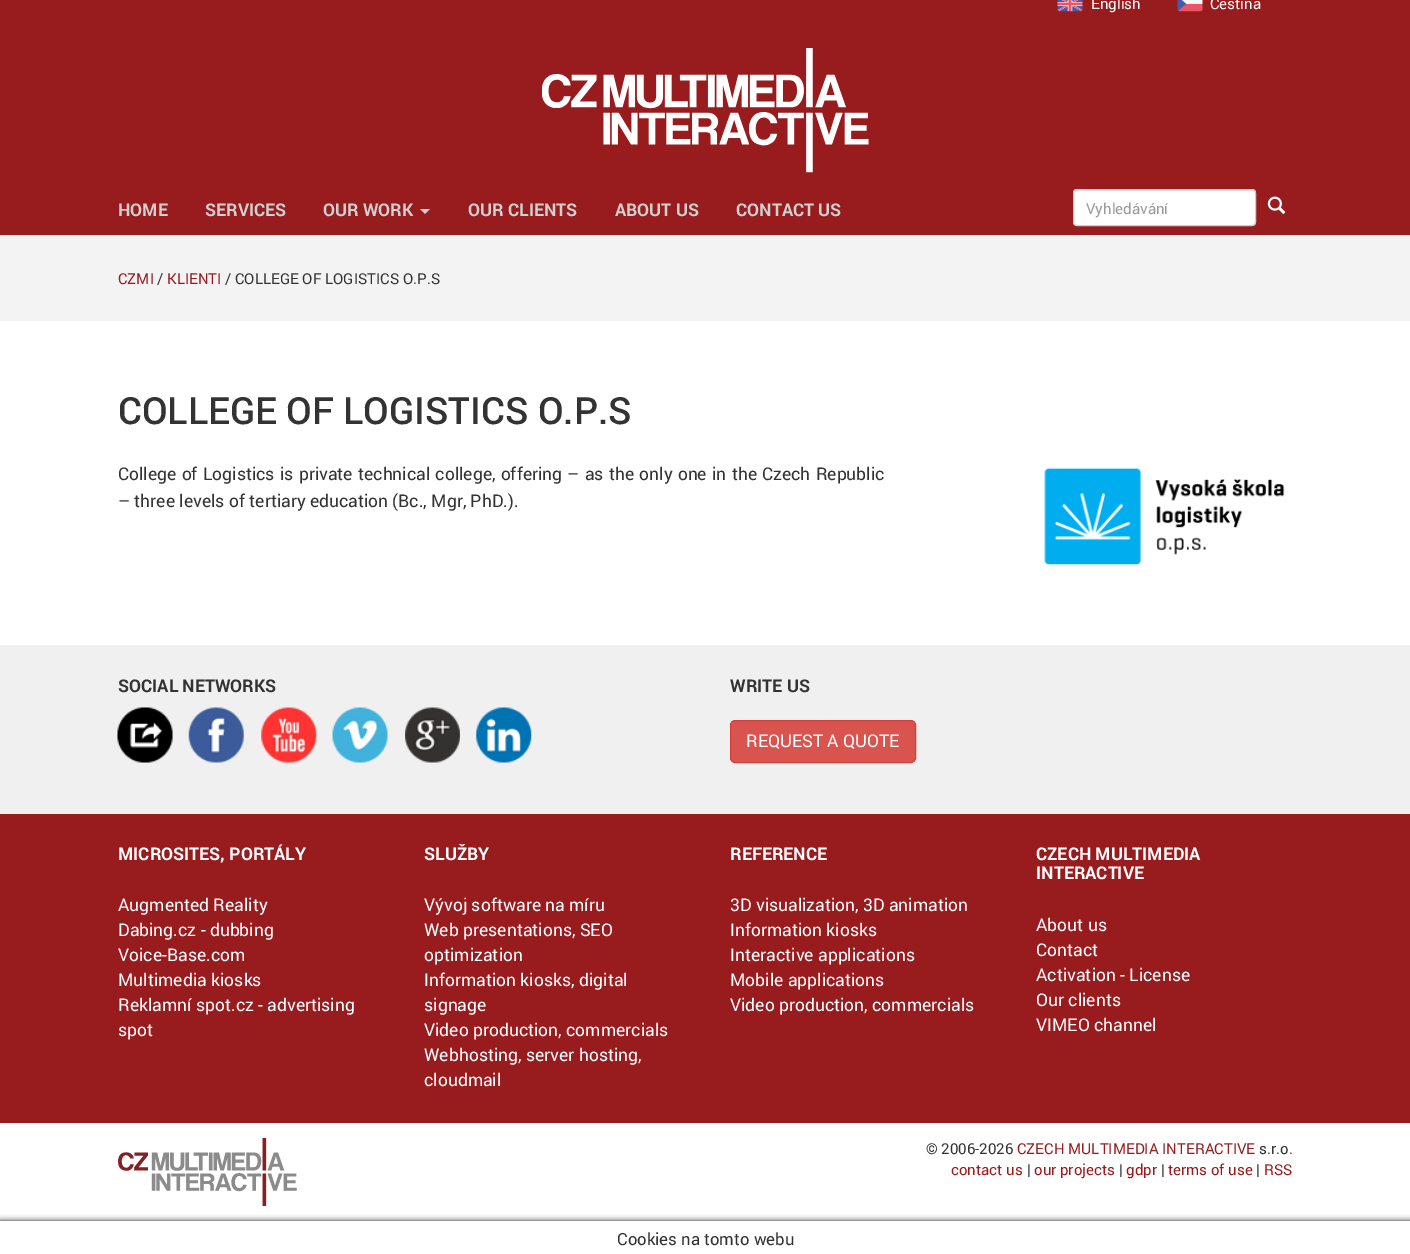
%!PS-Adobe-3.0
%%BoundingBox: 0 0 1410 1254
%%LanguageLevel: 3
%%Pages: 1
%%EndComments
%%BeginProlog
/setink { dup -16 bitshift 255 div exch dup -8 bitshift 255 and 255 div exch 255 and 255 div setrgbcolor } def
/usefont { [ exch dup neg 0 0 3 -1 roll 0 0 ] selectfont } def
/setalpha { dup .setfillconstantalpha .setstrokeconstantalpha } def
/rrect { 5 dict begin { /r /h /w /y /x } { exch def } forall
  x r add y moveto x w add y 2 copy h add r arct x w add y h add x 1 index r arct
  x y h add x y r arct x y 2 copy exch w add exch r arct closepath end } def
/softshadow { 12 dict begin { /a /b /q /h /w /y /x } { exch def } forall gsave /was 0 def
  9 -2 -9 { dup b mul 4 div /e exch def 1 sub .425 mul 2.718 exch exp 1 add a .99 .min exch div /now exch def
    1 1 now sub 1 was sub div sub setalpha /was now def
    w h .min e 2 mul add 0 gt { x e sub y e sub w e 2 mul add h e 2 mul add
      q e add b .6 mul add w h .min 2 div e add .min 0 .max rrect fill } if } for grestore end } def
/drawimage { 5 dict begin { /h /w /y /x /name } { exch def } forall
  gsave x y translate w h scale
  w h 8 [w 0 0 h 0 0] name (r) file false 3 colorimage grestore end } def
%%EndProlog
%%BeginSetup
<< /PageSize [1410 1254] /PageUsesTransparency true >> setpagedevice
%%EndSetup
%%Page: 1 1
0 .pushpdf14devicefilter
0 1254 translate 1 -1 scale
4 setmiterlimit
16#FFFFFF setink
0 0 1410 1254 rectfill
16#981B1E setink
0 0 1410 235 rectfill
(img1.raw) 1057 0 26 12 drawimage
/Roboto-Regular 15 usefont
16#FFFFFF setink
1091 9 moveto (English) show
(img2.raw) 1177 0 26 12 drawimage
1210 9 moveto (Čeština) show
(img3.raw) 542 48 327 125 drawimage
/Roboto-Bold 17.5 usefont
16#D0D0D0 setink
[
    [(HOME) 118 216]
    [(SERVICES) 205 216]
    [(OUR WORK) 323 216]
] { aload pop moveto show } forall
420 209 moveto 430 209 lineto 425 214 lineto closepath fill
[
    [(OUR CLIENTS) 468 216]
    [(ABOUT US) 615 216]
    [(CONTACT US) 736 216]
] { aload pop moveto show } forall
16#FFFFFF setink
1073 189 183 37 4 rrect fill
16#ECECEC setink
1076 191 moveto 1253 191 lineto 1254 192 lineto 1255 194 lineto 1255 192 lineto 1255 191 1254 190 1252 190 curveto 1076 190 lineto 1075 190 1074 191 1074 192 curveto 1074 194 lineto 1074 192 1075 191 1076 191 curveto closepath fill
16#CCCCCC setink
1073.5 189.5 182 36 3.5 rrect stroke
/Roboto-Regular 15 usefont
16#999999 setink
1086 214 moveto (Vyhledávání) show
(img4.raw) 1267 196 19 18 drawimage
16#F3F3F3 setink
0 235 1410 86 rectfill
16#981B1E setink
118 284 moveto (CZMI) show
16#333333 setink
157 284 moveto (/) show
16#981B1E setink
167 284 moveto (KLIENTI) show
16#333333 setink
225 284 moveto (/ COLLEGE OF LOGISTICS O.P.S) show
/Roboto-Medium 37.5 usefont
118 424 moveto (COLLEGE OF LOGISTICS O.P.S) show
/Roboto-Regular 17.5 usefont
118 480 moveto 0.9 0 32 (College of Logistics is private technical college, offering – as the only one in the Czech Republic) widthshow
118 507 moveto (– three levels of tertiary education \(Bc., Mgr, PhD.\).) show
(img5.raw) 1044 467 241 98 drawimage
16#F0F0F0 setink
0 645 1410 169 rectfill
/Roboto-Bold 17.5 usefont
16#333333 setink
118 692 moveto (SOCIAL NETWORKS) show
(img6.raw) 117 707 56 56 drawimage
(img7.raw) 188 707 56 56 drawimage
(img8.raw) 261 707 56 56 drawimage
(img9.raw) 332 707 56 56 drawimage
(img10.raw) 405 707 55 56 drawimage
(img11.raw) 476 707 56 56 drawimage
730 692 moveto (WRITE US) show
16#D9534F setink
730.5 720.5 185 42 4.5 rrect gsave fill grestore
16#D43F3A setink
stroke
/Roboto-Regular 17.5 usefont
16#FFFFFF setink
746 747 moveto (REQUEST A QUOTE) show
16#981B1E setink
0 814 1410 309 rectfill
/Roboto-Bold 17.5 usefont
16#FFFFFF setink
118 860 moveto (MICROSITES, PORTÁLY) show
/Roboto-Regular 17.5 usefont
[
    [(Augmented Reality) 118 911]
    [(Dabing.cz - dubbing) 118 936]
    [(Voice-Base.com) 118 961]
    [(Multimedia kiosks) 118 986]
    [(Reklamní spot.cz - advertising) 118 1011]
    [(spot) 118 1036]
] { aload pop moveto show } forall
/Roboto-Bold 17.5 usefont
424 860 moveto (SLUŽBY) show
/Roboto-Regular 17.5 usefont
[
    [(Vývoj software na míru) 424 911]
    [(Web presentations, SEO) 424 936]
    [(optimization) 424 961]
    [(Information kiosks, digital) 424 986]
    [(signage) 424 1011]
    [(Video production, commercials) 424 1036]
    [(Webhosting, server hosting,) 424 1061]
    [(cloudmail) 424 1086]
] { aload pop moveto show } forall
/Roboto-Bold 17.5 usefont
730 860 moveto (REFERENCE) show
/Roboto-Regular 17.5 usefont
[
    [(3D visualization, 3D animation) 730 911]
    [(Information kiosks) 730 936]
    [(Interactive applications) 730 961]
    [(Mobile applications) 730 986]
    [(Video production, commercials) 730 1011]
] { aload pop moveto show } forall
/Roboto-Bold 17.5 usefont
1036 860 moveto (CZECH MULTIMEDIA) show
1036 879 moveto (INTERACTIVE) show
/Roboto-Regular 17.5 usefont
[
    [(About us) 1036 931]
    [(Contact) 1036 956]
    [(Activation - License) 1036 981]
    [(Our clients) 1036 1006]
    [(VIMEO channel) 1036 1031]
] { aload pop moveto show } forall
(img12.raw) 118 1138 179 68 drawimage
/Roboto-Regular 15 usefont
16#333333 setink
926 1154 moveto (© 2006-2026) show
16#981B1E setink
1017 1154 moveto (CZECH MULTIMEDIA INTERACTIVE) show
16#333333 setink
1259 1154 moveto (s.r.o.) show
16#981B1E setink
951 1175 moveto (contact us) show
16#333333 setink
1027 1175 moveto (|) show
16#981B1E setink
1034 1175 moveto (our projects) show
16#333333 setink
1119 1175 moveto (|) show
16#981B1E setink
1126 1175 moveto (gdpr) show
16#333333 setink
1161 1175 moveto (|) show
16#981B1E setink
1168 1175 moveto (terms of use) show
16#333333 setink
1256 1175 moveto (|) show
16#981B1E setink
1264 1175 moveto (RSS) show
gsave
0 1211 moveto 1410 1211 lineto 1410 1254 lineto 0 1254 lineto closepath 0 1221 moveto 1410 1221 lineto 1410 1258 lineto 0 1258 lineto closepath eoclip newpath
16#161616 setink
0 1221 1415 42 0 3 1 softshadow
grestore
/Roboto-Regular 16.75 usefont
16#333333 setink
617 1245 moveto (Cookies na tomto webu) show
.poppdf14devicefilter showpage
%%EOF
